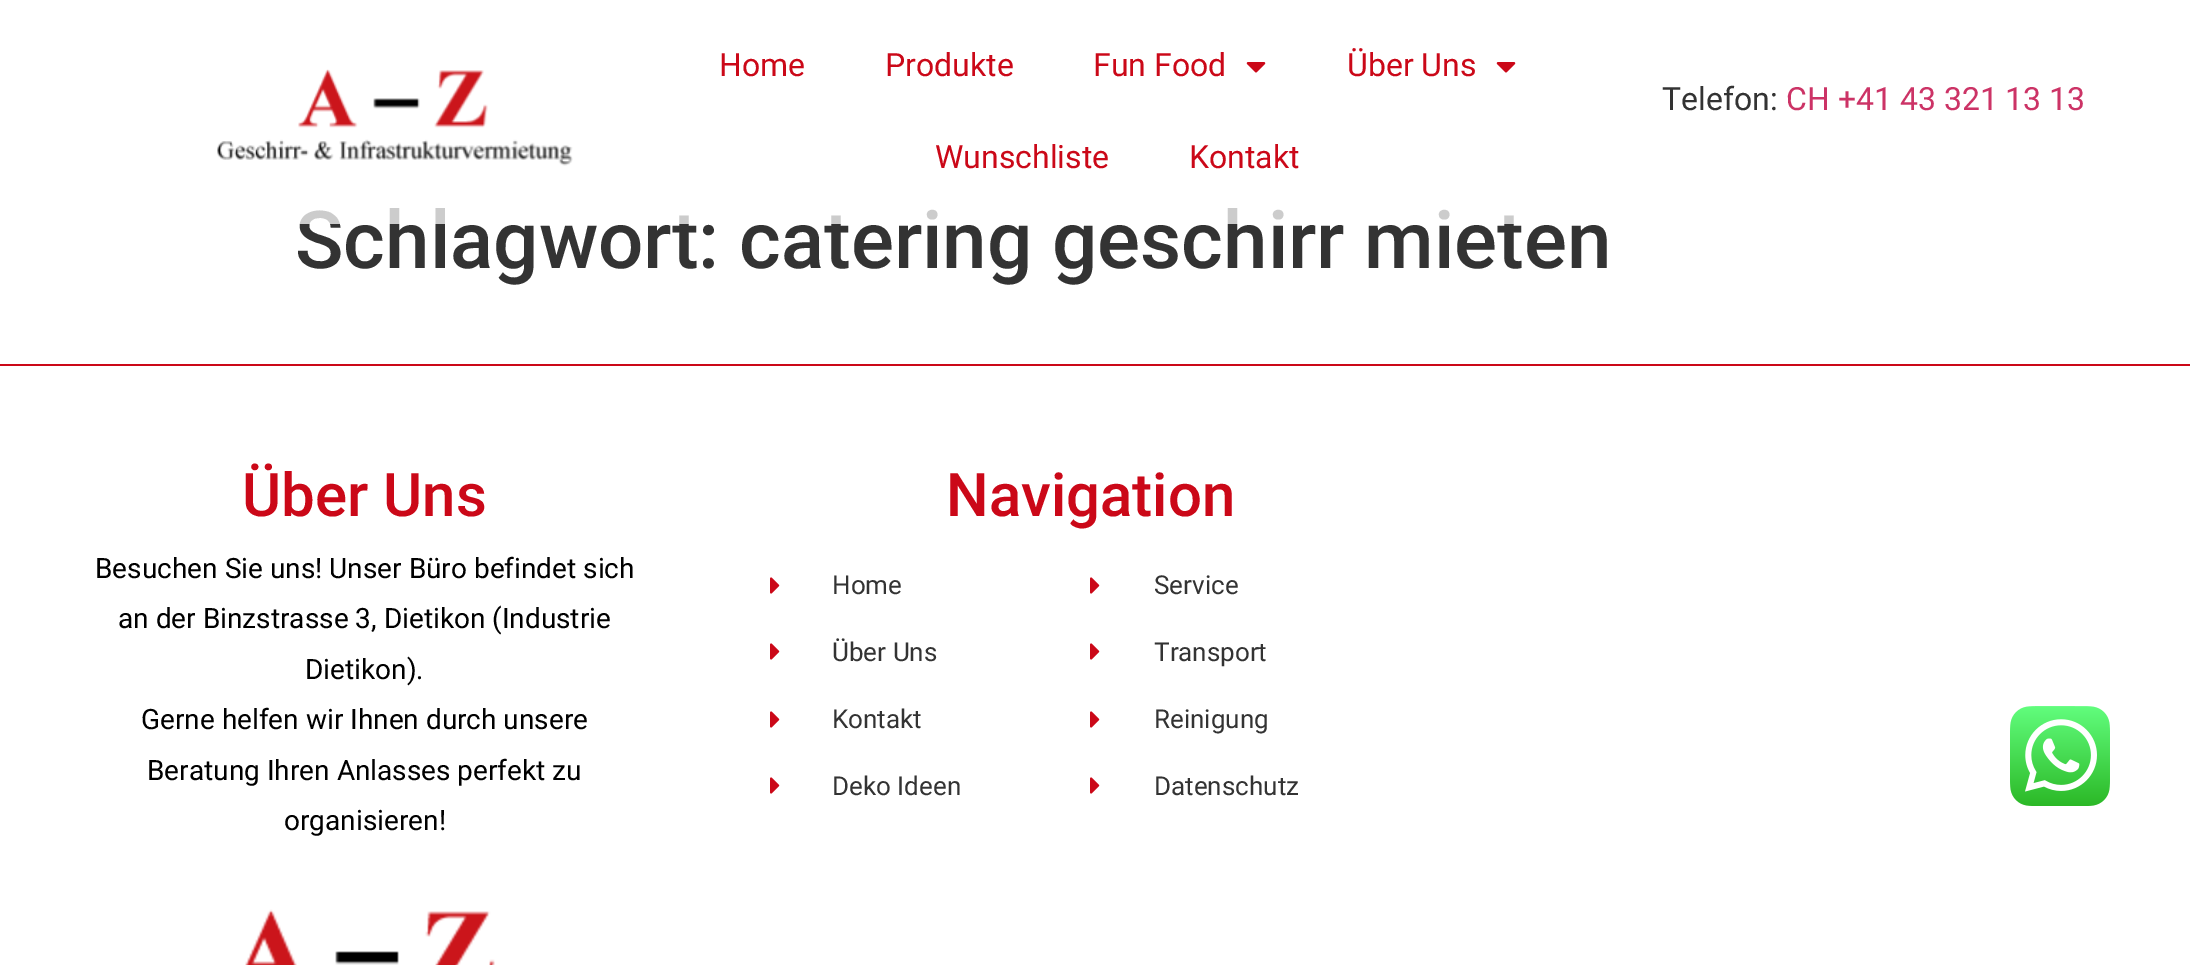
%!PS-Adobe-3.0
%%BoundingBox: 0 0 2190 965
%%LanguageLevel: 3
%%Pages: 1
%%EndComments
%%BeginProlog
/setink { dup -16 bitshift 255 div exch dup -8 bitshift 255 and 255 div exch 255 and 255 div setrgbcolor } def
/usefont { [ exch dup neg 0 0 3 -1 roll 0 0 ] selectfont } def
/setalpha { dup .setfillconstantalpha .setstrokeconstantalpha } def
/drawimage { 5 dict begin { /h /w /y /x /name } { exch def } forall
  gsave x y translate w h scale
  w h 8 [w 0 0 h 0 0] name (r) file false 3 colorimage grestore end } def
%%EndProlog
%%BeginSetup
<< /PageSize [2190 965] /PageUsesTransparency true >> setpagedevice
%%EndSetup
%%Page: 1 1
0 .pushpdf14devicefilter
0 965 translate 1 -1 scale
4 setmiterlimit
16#FFFFFF setink
0 0 2190 965 rectfill
/Roboto-Medium 80 usefont
16#333333 setink
295 268 moveto (Schlagwort: catering geschirr mieten) show
0.75 setalpha
16#FFFFFF setink
299 208 1216 16 rectfill
1 setalpha
(img1.raw) 217 69 356 97 drawimage
/Roboto-Regular 32 usefont
16#CB0818 setink
[
    [(Home) 719 76]
    [(Produkte) 885 76]
    [(Fun Food) 1093 76]
] { aload pop moveto show } forall
(img2.raw) 1246 62 20 11 drawimage
1347 76 moveto (Über Uns) show
(img2.raw) 1496 62 20 11 drawimage
935 168 moveto (Wunschliste) show
1189 168 moveto (Kontakt) show
16#333333 setink
1662 110 moveto (Telefon:) show
16#CC3366 setink
1786 110 moveto (CH +41 43 321 13 13) show
16#CB0818 setink
0 364 2190 2 rectfill
/Roboto-Medium 60 usefont
242 516 moveto (Über Uns) show
/Roboto-Regular 28 usefont
16#000000 setink
[
    [(Besuchen Sie uns! Unser Büro befindet sich) 95 578]
    [(an der Binzstrasse 3, Dietikon \(Industrie) 118 628]
    [(Dietikon\).) 305 679]
    [(Gerne helfen wir Ihnen durch unsere) 141 729]
    [(Beratung Ihren Anlasses perfekt zu) 147 780]
    [(organisieren!) 284 830]
] { aload pop moveto show } forall
(img3.raw) 245 909 250 56 drawimage
/Roboto-Medium 60 usefont
16#CB0818 setink
946 516 moveto (Navigation) show
(img4.raw) 770 577 10 17 drawimage
/Roboto-Regular 26 usefont
16#333333 setink
832 594 moveto (Home) show
(img4.raw) 770 643 10 17 drawimage
832 661 moveto (Über Uns) show
(img4.raw) 770 711 10 17 drawimage
832 728 moveto (Kontakt) show
(img4.raw) 770 777 10 17 drawimage
832 795 moveto (Deko Ideen) show
(img4.raw) 1090 577 10 17 drawimage
1154 594 moveto (Service) show
(img4.raw) 1090 643 10 17 drawimage
1154 661 moveto (Transport) show
(img4.raw) 1090 711 10 17 drawimage
1154 728 moveto (Reinigung) show
(img4.raw) 1090 777 10 17 drawimage
1154 795 moveto (Datenschutz) show
(img5.raw) 2010 706 100 100 drawimage
.poppdf14devicefilter showpage
%%EOF
